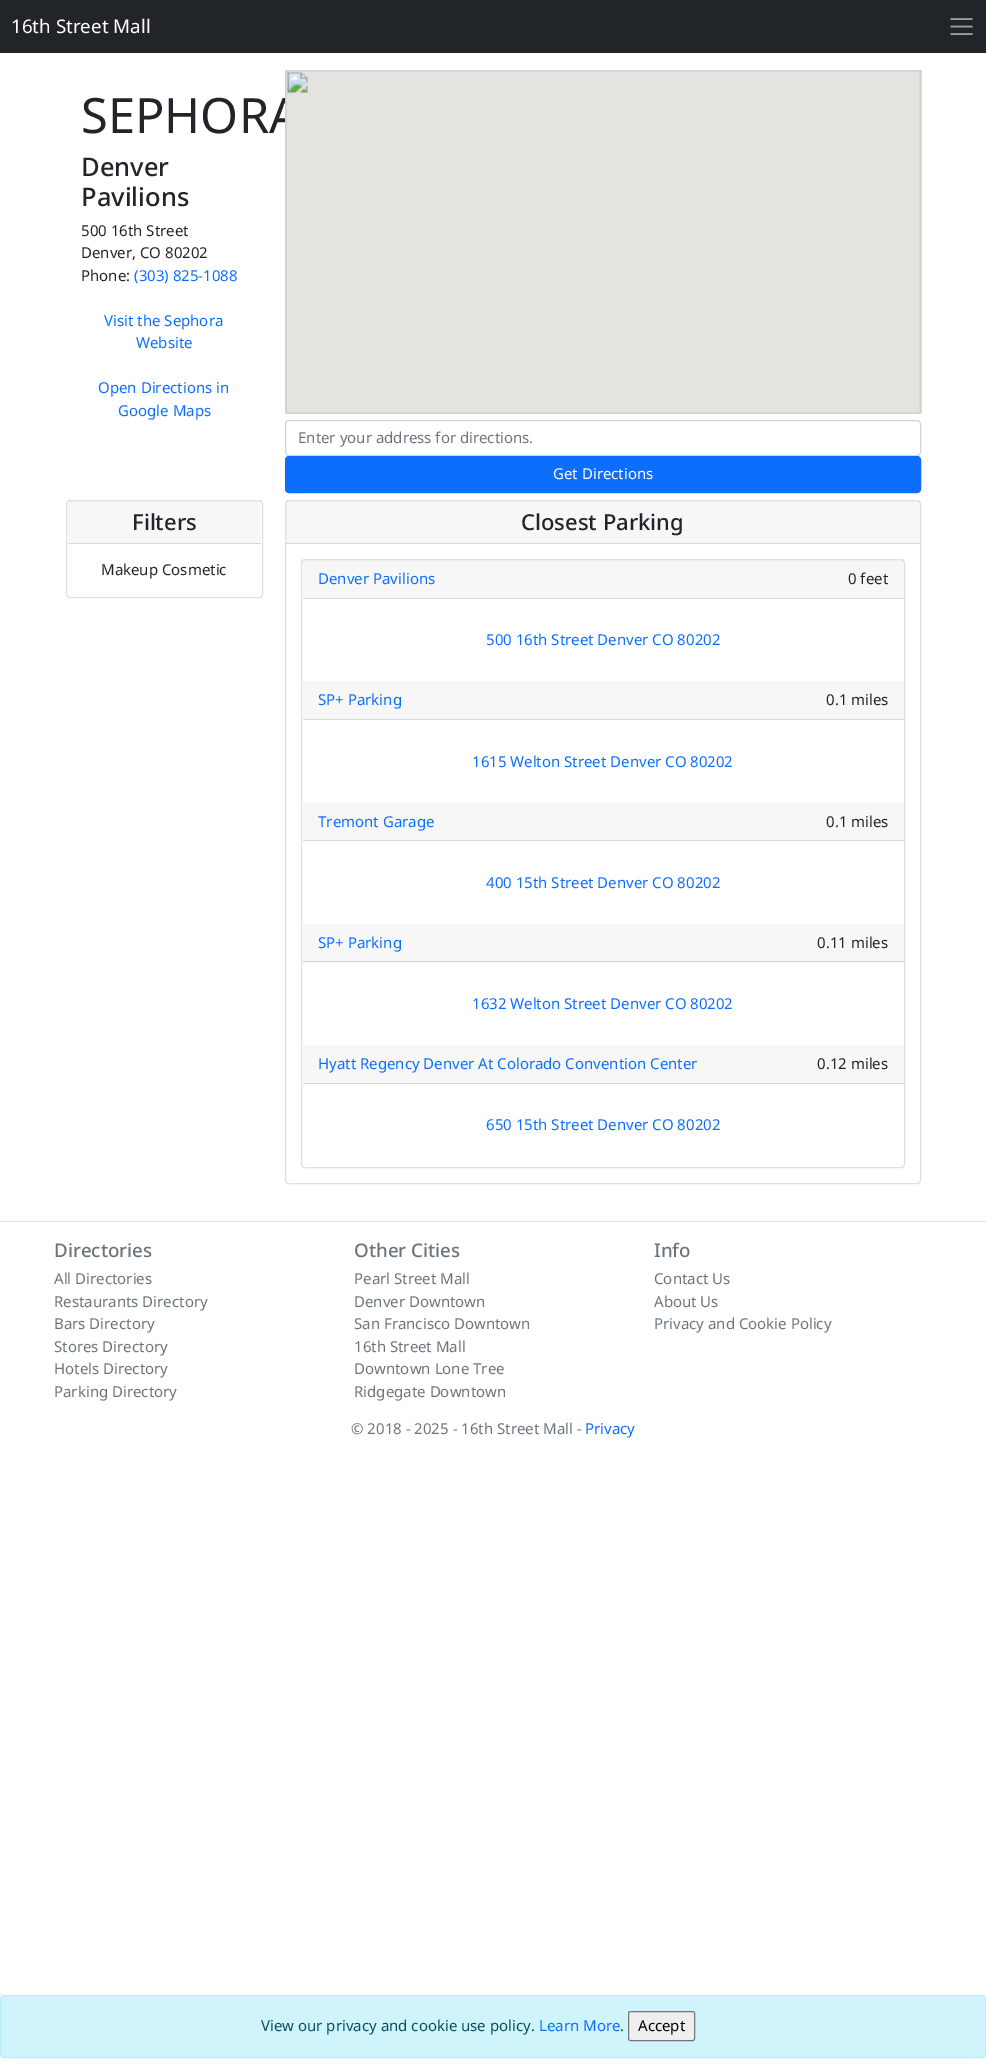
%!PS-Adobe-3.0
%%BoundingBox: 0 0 986 2072
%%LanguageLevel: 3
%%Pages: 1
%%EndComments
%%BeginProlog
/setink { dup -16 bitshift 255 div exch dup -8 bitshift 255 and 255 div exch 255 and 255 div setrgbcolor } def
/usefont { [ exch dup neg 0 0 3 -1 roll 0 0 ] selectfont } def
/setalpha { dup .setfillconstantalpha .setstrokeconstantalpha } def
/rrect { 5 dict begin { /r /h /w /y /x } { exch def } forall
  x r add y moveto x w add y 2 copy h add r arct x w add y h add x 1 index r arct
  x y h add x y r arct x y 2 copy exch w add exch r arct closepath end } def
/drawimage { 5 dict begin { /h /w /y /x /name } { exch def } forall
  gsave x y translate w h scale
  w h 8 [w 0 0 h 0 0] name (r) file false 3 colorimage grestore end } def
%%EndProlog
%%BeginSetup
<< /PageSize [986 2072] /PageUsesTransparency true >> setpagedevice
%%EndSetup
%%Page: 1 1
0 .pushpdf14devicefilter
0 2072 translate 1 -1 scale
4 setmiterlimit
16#FFFFFF setink
0 0 986 2072 rectfill
16#212529 setink
0 0 986 53 rectfill
/NotoSans-Regular 18.75 usefont
16#FFFFFF setink
11 33 moveto (16th Street Mall) show
(img1.raw) 950 18 23 17 drawimage
/NotoSans-Regular 48.75 usefont
16#212529 setink
81 133 moveto (SEPHORA) show
/NotoSans-Medium 25.5 usefont
81 176 moveto (Denver) show
81 206 moveto (Pavilions) show
/NotoSans-Regular 15 usefont
[
    [(500 16th Street) 81 236]
    [(Denver, CO 80202) 81 258]
    [(Phone:) 81 281]
] { aload pop moveto show } forall
16#0D6EFD setink
[
    [(\(303\) 825-1088) 134 281]
    [(Visit the Sephora) 104 326]
    [(Website) 136 348]
    [(Open Directions in) 98 393]
    [(Google Maps) 118 416]
] { aload pop moveto show } forall
(img2.raw) 285 70 637 344 drawimage
16#CED4DA setink
285.5 420.5 635 35 3.5 rrect stroke
16#6C757D setink
298 443 moveto (Enter your address for directions.) show
16#0D6EFD setink
285.5 456.5 635 36 3.5 rrect gsave fill grestore
stroke
16#FFFFFF setink
553 479 moveto (Get Directions) show
16#DFDFDF setink
66.5 500.5 196 97 3.5 rrect stroke
0.03 setalpha
16#000000 setink
68 501 193 42 rectfill
1 setalpha
16#D8D8D8 setink
68 543 193 1 rectfill
/NotoSans-Medium 22 usefont
16#212529 setink
132 530 moveto (Filters) show
/NotoSans-Regular 15 usefont
101 575 moveto (Makeup Cosmetic) show
16#DFDFDF setink
285.5 500.5 635 683 3.5 rrect stroke
0.03 setalpha
16#000000 setink
286 501 634 42 rectfill
1 setalpha
16#D8D8D8 setink
286 543 634 1 rectfill
/NotoSans-Medium 22 usefont
16#212529 setink
521 530 moveto (Closest Parking) show
16#DFDFDF setink
301.5 559.5 603 608 3.5 rrect stroke
0.03 setalpha
16#000000 setink
303 560 601 38 rectfill
1 setalpha
16#D8D8D8 setink
303 598 601 1 rectfill
/NotoSans-Regular 15 usefont
16#0D6EFD setink
318 584 moveto (Denver Pavilions) show
16#212529 setink
848 584 moveto (0 feet) show
16#0D6EFD setink
486 645 moveto (500 16th Street Denver CO 80202) show
16#F7F7F7 setink
303 681 601 38 rectfill
16#D8D8D8 setink
303 719 601 1 rectfill
16#0D6EFD setink
318 705 moveto (SP+ Parking) show
16#212529 setink
826 705 moveto (0.1 miles) show
16#0D6EFD setink
472 767 moveto (1615 Welton Street Denver CO 80202) show
16#F7F7F7 setink
303 803 601 37 rectfill
16#D8D8D8 setink
303 840 601 1 rectfill
16#0D6EFD setink
318 827 moveto (Tremont Garage) show
16#212529 setink
826 827 moveto (0.1 miles) show
16#0D6EFD setink
486 888 moveto (400 15th Street Denver CO 80202) show
16#F7F7F7 setink
303 924 601 39 rectfill
16#D8D8D8 setink
303 961 601 1 rectfill
16#0D6EFD setink
318 948 moveto (SP+ Parking) show
16#212529 setink
817 948 moveto (0.11 miles) show
16#0D6EFD setink
472 1009 moveto (1632 Welton Street Denver CO 80202) show
16#F7F7F7 setink
303 1045 601 38 rectfill
16#D8D8D8 setink
303 1083 601 1 rectfill
16#0D6EFD setink
318 1069 moveto (Hyatt Regency Denver At Colorado Convention Center) show
16#212529 setink
817 1069 moveto (0.12 miles) show
16#0D6EFD setink
486 1130 moveto (650 15th Street Denver CO 80202) show
16#CFF4FC setink
0.5 1995.5 985 62 3.5 rrect gsave fill grestore
16#B6EFFB setink
stroke
16#055160 setink
261 2031 moveto (View our privacy and cookie use policy.) show
16#0D6EFD setink
539 2031 moveto (Learn More) show
16#055160 setink
620 2031 moveto (.) show
16#EFEFEF setink
628.5 2011.5 66 29 2 rrect gsave fill grestore
16#767676 setink
stroke
16#000000 setink
638 2031 moveto (Accept) show
16#DEE2E6 setink
0 1221 986 1 rectfill
/NotoSans-Medium 18.75 usefont
16#6C757D setink
54 1257 moveto (Directories) show
/NotoSans-Regular 15 usefont
[
    [(All Directories) 54 1284]
    [(Restaurants Directory) 54 1307]
    [(Bars Directory) 54 1329]
    [(Stores Directory) 54 1352]
    [(Hotels Directory) 54 1374]
    [(Parking Directory) 54 1397]
] { aload pop moveto show } forall
/NotoSans-Medium 18.75 usefont
354 1257 moveto (Other Cities) show
/NotoSans-Regular 15 usefont
[
    [(Pearl Street Mall) 354 1284]
    [(Denver Downtown) 354 1307]
    [(San Francisco Downtown) 354 1329]
    [(16th Street Mall) 354 1352]
    [(Downtown Lone Tree) 354 1374]
    [(Ridgegate Downtown) 354 1397]
] { aload pop moveto show } forall
/NotoSans-Medium 18.75 usefont
654 1257 moveto (Info) show
/NotoSans-Regular 15 usefont
[
    [(Contact Us) 654 1284]
    [(About Us) 654 1307]
    [(Privacy and Cookie Policy) 654 1329]
    [(© 2018 - 2025 - 16th Street Mall -) 351 1434]
] { aload pop moveto show } forall
16#0D6EFD setink
585 1434 moveto (Privacy) show
.poppdf14devicefilter showpage
%%EOF
